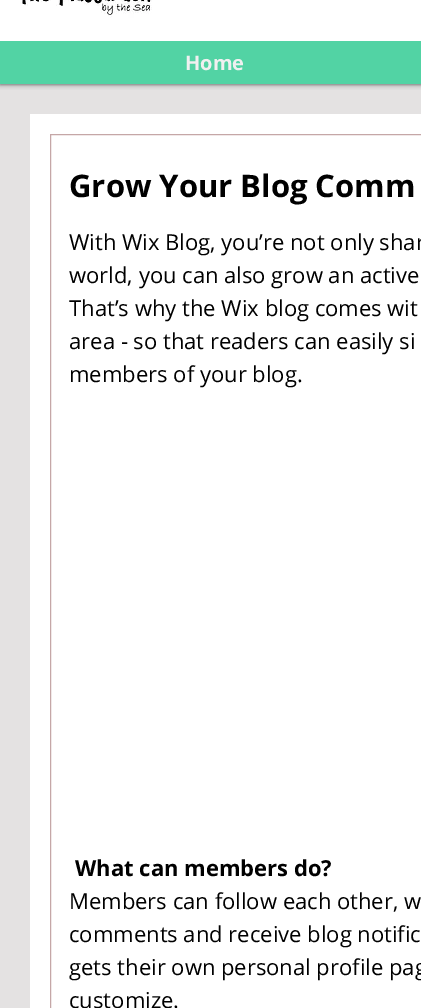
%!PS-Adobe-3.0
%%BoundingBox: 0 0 421 1008
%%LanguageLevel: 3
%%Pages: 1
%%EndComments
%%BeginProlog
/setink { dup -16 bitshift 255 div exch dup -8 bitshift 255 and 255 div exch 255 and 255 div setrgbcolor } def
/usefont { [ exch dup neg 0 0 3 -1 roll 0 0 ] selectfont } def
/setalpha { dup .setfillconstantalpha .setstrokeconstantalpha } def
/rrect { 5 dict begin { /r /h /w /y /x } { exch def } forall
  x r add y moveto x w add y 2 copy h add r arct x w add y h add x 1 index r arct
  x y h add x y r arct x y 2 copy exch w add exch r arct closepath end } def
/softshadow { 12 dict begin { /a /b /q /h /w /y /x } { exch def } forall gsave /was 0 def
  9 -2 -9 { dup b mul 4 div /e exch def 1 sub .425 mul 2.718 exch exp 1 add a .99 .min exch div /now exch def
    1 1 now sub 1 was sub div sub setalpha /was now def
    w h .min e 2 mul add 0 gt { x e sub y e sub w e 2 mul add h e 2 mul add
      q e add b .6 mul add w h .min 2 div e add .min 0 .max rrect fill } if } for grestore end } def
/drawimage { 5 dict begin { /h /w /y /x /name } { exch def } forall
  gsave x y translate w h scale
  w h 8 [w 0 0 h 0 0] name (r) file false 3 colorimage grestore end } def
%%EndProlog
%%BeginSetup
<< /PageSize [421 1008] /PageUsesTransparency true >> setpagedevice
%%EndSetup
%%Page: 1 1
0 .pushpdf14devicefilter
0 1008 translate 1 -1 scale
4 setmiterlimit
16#E4E2E2 setink
0 0 421 1008 rectfill
16#000000 setink
0 -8 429 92 0 2.5 0.7 softshadow
16#FFFFFF setink
0 0 421 41 rectfill
(img1.raw) 20 0 132 18 drawimage
16#52D3A4 setink
0 41 421 43 rectfill
/OpenSans-Bold 20 usefont
16#F0F0F0 setink
185 70 moveto (Home) show
16#FFFFFF setink
30 114 391 894 rectfill
16#C5A7A7 setink
50.5 134.5 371 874 rectstroke
/OpenSans-Bold 31 usefont
16#000000 setink
69 197 moveto (Grow Your Blog Comm) show
/OpenSans-Regular 22 usefont
[
    [(With Wix Blog, you’re not only shar) 69 250]
    [(world, you can also grow an active) 69 283]
    [(That’s why the Wix blog comes wit) 69 316]
    [(area - so that readers can easily si) 69 349]
    [(members of your blog.) 69 382]
] { aload pop moveto show } forall
/OpenSans-Bold 22 usefont
75 876 moveto (What can members do?) show
/OpenSans-Regular 22 usefont
[
    [(Members can follow each other, w) 69 909]
    [(comments and receive blog notific) 69 942]
    [(gets their own personal profile pag) 69 975]
    [(customize.) 69 1008]
] { aload pop moveto show } forall
.poppdf14devicefilter showpage
%%EOF
